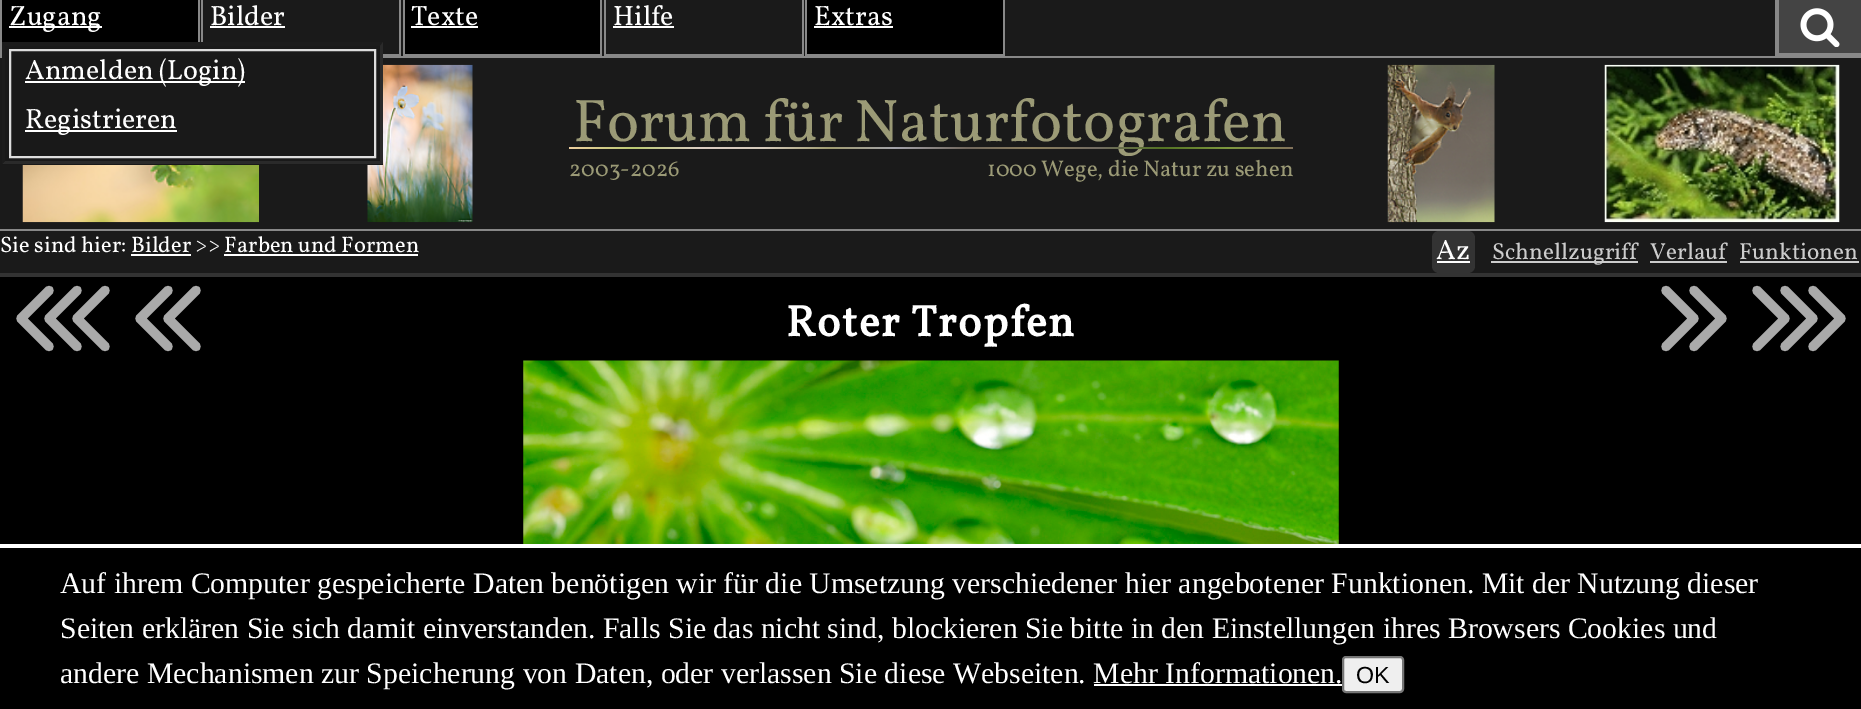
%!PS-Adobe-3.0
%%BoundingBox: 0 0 1861 709
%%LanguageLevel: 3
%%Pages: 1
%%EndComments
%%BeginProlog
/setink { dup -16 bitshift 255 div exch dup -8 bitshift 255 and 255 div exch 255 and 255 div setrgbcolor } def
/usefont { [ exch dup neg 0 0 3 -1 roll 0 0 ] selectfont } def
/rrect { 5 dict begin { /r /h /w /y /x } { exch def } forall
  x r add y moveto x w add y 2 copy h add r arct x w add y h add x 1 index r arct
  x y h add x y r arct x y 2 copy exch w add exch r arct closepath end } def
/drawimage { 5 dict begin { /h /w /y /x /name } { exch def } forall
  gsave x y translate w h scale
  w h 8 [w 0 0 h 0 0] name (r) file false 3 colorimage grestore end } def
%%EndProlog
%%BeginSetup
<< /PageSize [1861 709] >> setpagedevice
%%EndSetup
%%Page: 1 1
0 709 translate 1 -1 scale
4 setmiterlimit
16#000000 setink
0 0 1861 709 rectfill
[
    [0 0 1861 273 16#1A1A1A]
    [0 273 1861 4 16#333333]
    [2 0 196 42 16#000000]
    [198 0 2 42 16#888888]
    [0 0 2 56 16#888888]
    [9 26 93 2 16#FFFFFF]
] { aload pop setink rectfill } forall
/Vollkorn-Regular 28 usefont
9 25 moveto (Zugang) show
16#888888 setink
0 56 1861 2 rectfill
(img2.raw) 367 64 106 159 drawimage
16#191919 setink
2 56 381 109 rectfill
16#1C1C1C setink
2 42 moveto 383 42 lineto 380 46 lineto 5 46 lineto closepath fill
16#2A2A2A setink
383 42 moveto 383 164 lineto 380 161 lineto 380 46 lineto closepath fill
383 164 moveto 2 164 lineto 5 161 lineto 380 161 lineto closepath fill
16#1C1C1C setink
2 164 moveto 2 42 lineto 5 46 lineto 5 161 lineto closepath fill
16#DDDDDD setink
2 setlinewidth
10 50 365 107 rectstroke
16#FFFFFF setink
25 81 220 2 rectfill
25 79 moveto (Anmelden \(Login\)) show
25 130 152 2 rectfill
25 128 moveto (Registrieren) show
[
    [399 0 2 56 16#888888]
    [383 54 18 2 16#888888]
    [201 0 2 42 16#888888]
] { aload pop setink rectfill } forall
16#FFFFFF setink
210 25 moveto (Bilder) show
[
    [210 26 75 2 16#FFFFFF]
    [405 0 195 54 16#000000]
    [600 0 2 56 16#888888]
    [403 54 199 2 16#888888]
    [403 0 2 56 16#888888]
] { aload pop setink rectfill } forall
16#FFFFFF setink
411 25 moveto (Texte) show
[
    [411 26 67 2 16#FFFFFF]
    [802 0 2 56 16#888888]
    [604 54 199 2 16#888888]
    [604 0 2 56 16#888888]
] { aload pop setink rectfill } forall
16#FFFFFF setink
613 25 moveto (Hilfe) show
[
    [613 26 61 2 16#FFFFFF]
    [807 0 196 54 16#000000]
    [1003 0 2 56 16#888888]
    [805 54 200 2 16#888888]
    [805 0 2 56 16#888888]
] { aload pop setink rectfill } forall
16#FFFFFF setink
814 25 moveto (Extras) show
[
    [814 26 79 2 16#FFFFFF]
    [1779 0 82 53 16#444444]
    [1775 53 86 3 16#888888]
    [1775 0 4 56 16#888888]
] { aload pop setink rectfill } forall
(img1.raw) 1800 8 40 39 drawimage
0 229 1861 2 rectfill
gsave
569 98 724 61 rectclip
/Vollkorn-Regular 60.4 usefont
16#9B9A76 setink
573 141 moveto -1 0 32 (Forum für Naturfotografen) widthshow
grestore
gsave 569 147 moveto 1293 147 lineto 1293 149 lineto 569 149 lineto closepath clip newpath
<< /ShadingType 2 /ColorSpace /DeviceRGB /Coords [569 148 1293 148] /Extend [true true] /Function << /FunctionType 3 /Domain [0 1] /Functions [<< /FunctionType 2 /Domain [0 1] /C0 [0.929 0.808 0.624] /C1 [0.733 0.788 0.451] /N 1 >> << /FunctionType 2 /Domain [0 1] /C0 [0.733 0.788 0.451] /C1 [0.859 0.804 0.765] /N 1 >> << /FunctionType 2 /Domain [0 1] /C0 [0.859 0.804 0.765] /C1 [0.839 0.796 0.737] /N 1 >> << /FunctionType 2 /Domain [0 1] /C0 [0.839 0.796 0.737] /C1 [0.631 0.616 0.447] /N 1 >> << /FunctionType 2 /Domain [0 1] /C0 [0.631 0.616 0.447] /C1 [0.647 0.643 0.671] /N 1 >> << /FunctionType 2 /Domain [0 1] /C0 [0.647 0.643 0.671] /C1 [0.451 0.412 0.376] /N 1 >> << /FunctionType 2 /Domain [0 1] /C0 [0.451 0.412 0.376] /C1 [0.549 0.498 0.365] /N 1 >> << /FunctionType 2 /Domain [0 1] /C0 [0.549 0.498 0.365] /C1 [0.451 0.424 0.388] /N 1 >> << /FunctionType 2 /Domain [0 1] /C0 [0.451 0.424 0.388] /C1 [0.329 0.451 0.141] /N 1 >> << /FunctionType 2 /Domain [0 1] /C0 [0.329 0.451 0.141] /C1 [0.498 0.6 0.247] /N 1 >> << /FunctionType 2 /Domain [0 1] /C0 [0.498 0.6 0.247] /C1 [0.51 0.447 0.361] /N 1 >>] /Bounds [0.09 0.18 0.27 0.36 0.45 0.55 0.64 0.73 0.82 0.91] /Encode [0 1 0 1 0 1 0 1 0 1 0 1 0 1 0 1 0 1 0 1 0 1] >> >> shfill grestore
/Vollkorn-Regular 22.75 usefont
16#9B9A76 setink
569 176 moveto (2003-2026) show
987 176 moveto (1000 Wege, die Natur zu sehen) show
(img3.raw) 1387 64 108 159 drawimage
(img4.raw) 1604 64 236 159 drawimage
(img5.raw) 22 165 237 58 drawimage
/Vollkorn-Regular 22.4 usefont
16#FFFFFF setink
0 252 moveto (Sie sind hier: Bilder >> Farben und Formen) show
131 254 60 2 rectfill
224 254 194 2 rectfill
16#333333 setink
1432 231 43 42 7 rrect fill
/Vollkorn-Regular 28 usefont
16#FFFFFF setink
1436 259 moveto (Az) show
1437 261 33 2 rectfill
16#CCCCCC setink
1491 261 147 2 rectfill
/Vollkorn-Regular 23.25 usefont
1492 259 moveto (Schnellzugriff) show
1650 259 moveto (Verlauf) show
1650 261 77 2 rectfill
1739 259 moveto (Funktionen) show
1740 261 119 2 rectfill
16#AAAAAA setink
9.3 setlinewidth
1 setlinecap
1 setlinejoin
49 290.5 moveto 21 318.5 lineto 49 346.5 lineto 77 290.5 moveto 49 318.5 lineto 77 346.5 lineto 105 290.5 moveto 77 318.5 lineto 105 346.5 lineto stroke
168 290.5 moveto 140 318.5 lineto 168 346.5 lineto 196 290.5 moveto 168 318.5 lineto 196 346.5 lineto stroke
/Vollkorn-Bold 43.75 usefont
16#FFFFFF setink
786 336 moveto 1.5 0 (Roter Tropfen) ashow
16#AAAAAA setink
1666 290.5 moveto 1694 318.5 lineto 1666 346.5 lineto 1694 290.5 moveto 1722 318.5 lineto 1694 346.5 lineto stroke
1757 290.5 moveto 1785 318.5 lineto 1757 346.5 lineto 1785 290.5 moveto 1813 318.5 lineto 1785 346.5 lineto 1813 290.5 moveto 1841 318.5 lineto 1813 346.5 lineto stroke
(img6.raw) 523 360 816 184 drawimage
16#FFFFFF setink
0 544 1861 4 rectfill
/LiberationSerif-Regular 29.75 usefont
[
    [(Auf ihrem Computer gespeicherte Daten benötigen wir für die Umsetzung verschiedener hier angebotener Funktionen. Mit der Nutzung dieser) 60 593]
    [(Seiten erklären Sie sich damit einverstanden. Falls Sie das nicht sind, blockieren Sie bitte in den Einstellungen ihres Browsers Cookies und) 60 638]
    [(andere Mechanismen zur Speicherung von Daten, oder verlassen Sie diese Webseiten. Mehr Informationen.) 60 683]
] { aload pop moveto show } forall
16#EFEFEF setink
1343 657 60 35 3 rrect gsave fill grestore
16#767676 setink
2 setlinewidth
0 setlinecap
0 setlinejoin
stroke
/LiberationSans-Regular 23.25 usefont
16#000000 setink
1356 683 moveto (OK) show
16#FFFFFF setink
1094 684 248 2 rectfill
showpage
%%EOF
